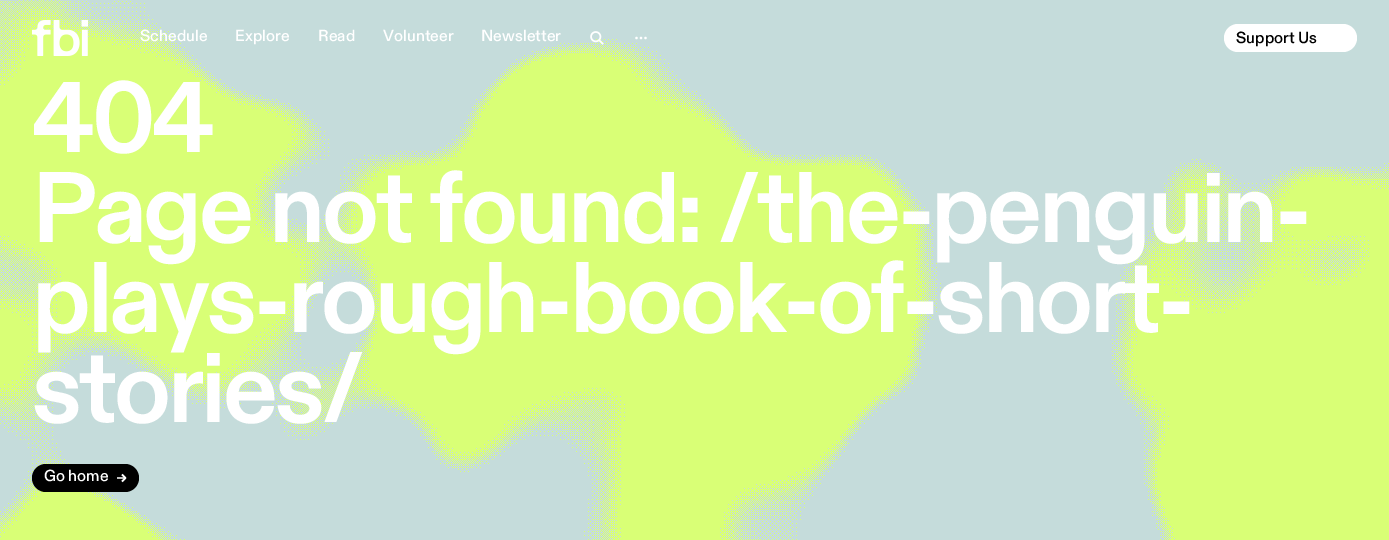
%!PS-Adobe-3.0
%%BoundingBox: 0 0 1389 540
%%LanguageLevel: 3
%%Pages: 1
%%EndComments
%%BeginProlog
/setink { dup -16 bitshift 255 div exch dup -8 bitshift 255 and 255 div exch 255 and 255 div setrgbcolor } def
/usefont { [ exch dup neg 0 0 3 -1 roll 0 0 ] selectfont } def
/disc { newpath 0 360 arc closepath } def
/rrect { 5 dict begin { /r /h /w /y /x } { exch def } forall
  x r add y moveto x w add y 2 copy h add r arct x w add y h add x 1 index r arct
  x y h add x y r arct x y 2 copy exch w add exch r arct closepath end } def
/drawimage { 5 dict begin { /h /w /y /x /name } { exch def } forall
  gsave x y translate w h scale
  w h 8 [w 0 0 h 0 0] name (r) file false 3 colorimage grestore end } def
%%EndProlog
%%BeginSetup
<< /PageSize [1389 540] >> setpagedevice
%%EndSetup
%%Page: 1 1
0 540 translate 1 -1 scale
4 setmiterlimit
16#FFFFFF setink
0 0 1389 540 rectfill
(img1.raw) 0 0 1389 540 drawimage
(img2.raw) 32 20 56 36 drawimage
/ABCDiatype-Medium 16 usefont
[
    [(Schedule) 140 41]
    [(Explore) 235 41]
    [(Read) 318 41]
    [(Volunteer) 383 41]
    [(Newsletter) 481 41]
] { aload pop moveto show } forall
(img3.raw) 590 31 14 14 drawimage
636.5 38 1.2 disc fill
641 38 1.2 disc fill
645.5 38 1.2 disc fill
1224 24 133 28 14 rrect fill
16#000000 setink
1236 43 moveto (Support Us) show
/ABCDiatype-Bold 100 usefont
16#FFFFFF setink
32 152 moveto -3 0 (404) ashow
32 242 moveto -3 0 (Page not found: /the-penguin-) ashow
32 332 moveto -3 0 (plays-rough-book-of-short-) ashow
32 422 moveto -3 0 (stories/) ashow
16#000000 setink
32 464 107 28 14 rrect fill
/ABCDiatype-Medium 16 usefont
16#FFFFFF setink
44 481 moveto (Go home) show
16#BFBFBF setink
117 477 9 2 rectfill
16#FFFFFF setink
1.5 setlinewidth
1 setlinejoin
122 474.5 moveto 125.5 478 lineto 122 481.5 lineto stroke
showpage
%%EOF
